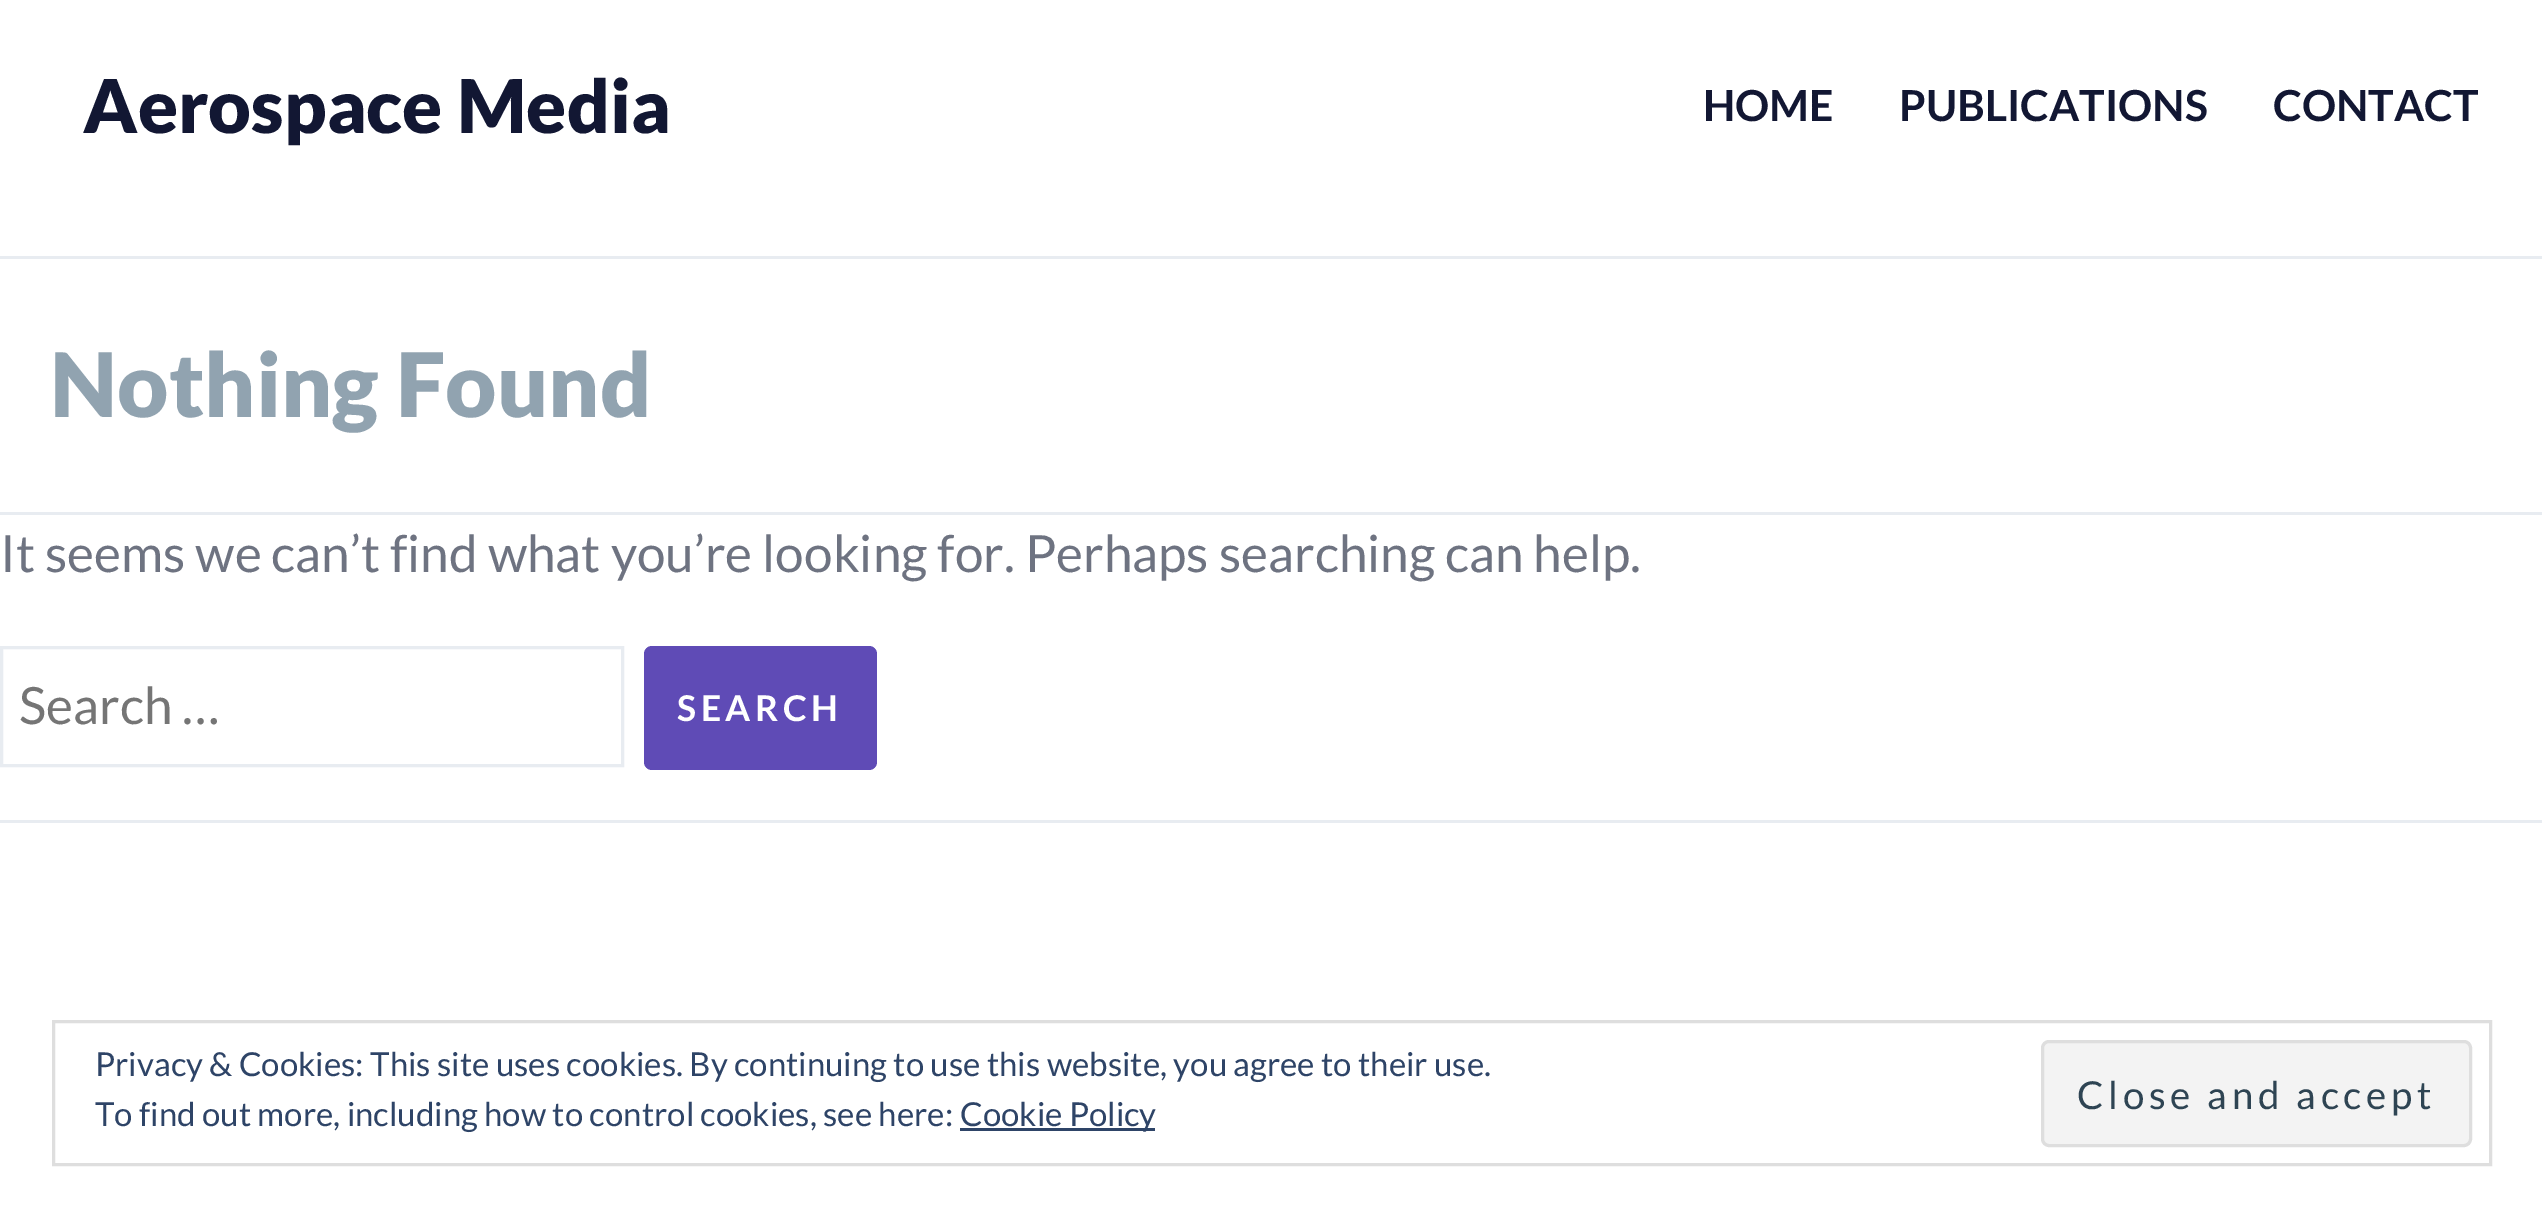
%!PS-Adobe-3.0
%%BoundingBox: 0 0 2542 1217
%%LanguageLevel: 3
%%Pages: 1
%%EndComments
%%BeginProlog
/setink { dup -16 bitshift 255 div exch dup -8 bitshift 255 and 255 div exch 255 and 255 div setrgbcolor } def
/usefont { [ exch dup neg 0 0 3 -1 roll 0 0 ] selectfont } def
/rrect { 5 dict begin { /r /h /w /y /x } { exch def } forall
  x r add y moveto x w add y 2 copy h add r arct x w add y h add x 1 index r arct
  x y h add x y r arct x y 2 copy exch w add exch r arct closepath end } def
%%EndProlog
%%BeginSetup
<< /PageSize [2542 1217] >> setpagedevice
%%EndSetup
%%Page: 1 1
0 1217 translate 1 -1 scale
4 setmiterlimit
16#FFFFFF setink
0 0 2542 1217 rectfill
16#E8ECF1 setink
0 256 2542 3 rectfill
/Lato-Black 74 usefont
16#121733 setink
83 133 moveto (Aerospace Media) show
/Lato-Bold 42.75 usefont
[
    [(HOME) 1703 121]
    [(PUBLICATIONS) 1899 121]
    [(CONTACT) 2273 121]
] { aload pop moveto show } forall
16#E8ECF1 setink
0 512 2542 3 rectfill
/Lato-Black 88.75 usefont
16#91A3B0 setink
50 417 moveto (Nothing Found) show
/Lato-Regular 51.35 usefont
16#6E7381 setink
0 572 moveto (It seems we can’t find what you’re looking for. Perhaps searching can help.) show
16#E8ECF1 setink
3 setlinewidth
1.5 647.5 621 118 rectstroke
16#757575 setink
19 724 moveto (Search …) show
16#5F4BB6 setink
644 646 233 124 8 rrect fill
/Lato-Bold 35.5 usefont
16#FFFFFF setink
677 721 moveto 4.5 0 (SEARCH) ashow
16#E8ECF1 setink
0 820 2542 3 rectfill
16#DEDEDE setink
53.5 1021.5 2437 143 rectstroke
/Lato-Regular 33 usefont
16#2E4467 setink
95 1076 moveto (Privacy & Cookies: This site uses cookies. By continuing to use this website, you agree to their use.) show
95 1126 moveto (To find out more, including how to control cookies, see here:) show
960 1128 195 3 rectfill
960 1126 moveto (Cookie Policy) show
16#F3F3F3 setink
2042.5 1041.5 428 104 6.5 rrect gsave fill grestore
16#DEDEDE setink
stroke
/Lato-Regular 38.5 usefont
16#2E4453 setink
2077 1109 moveto 4.75 0 (Close and accept) ashow
showpage
%%EOF
